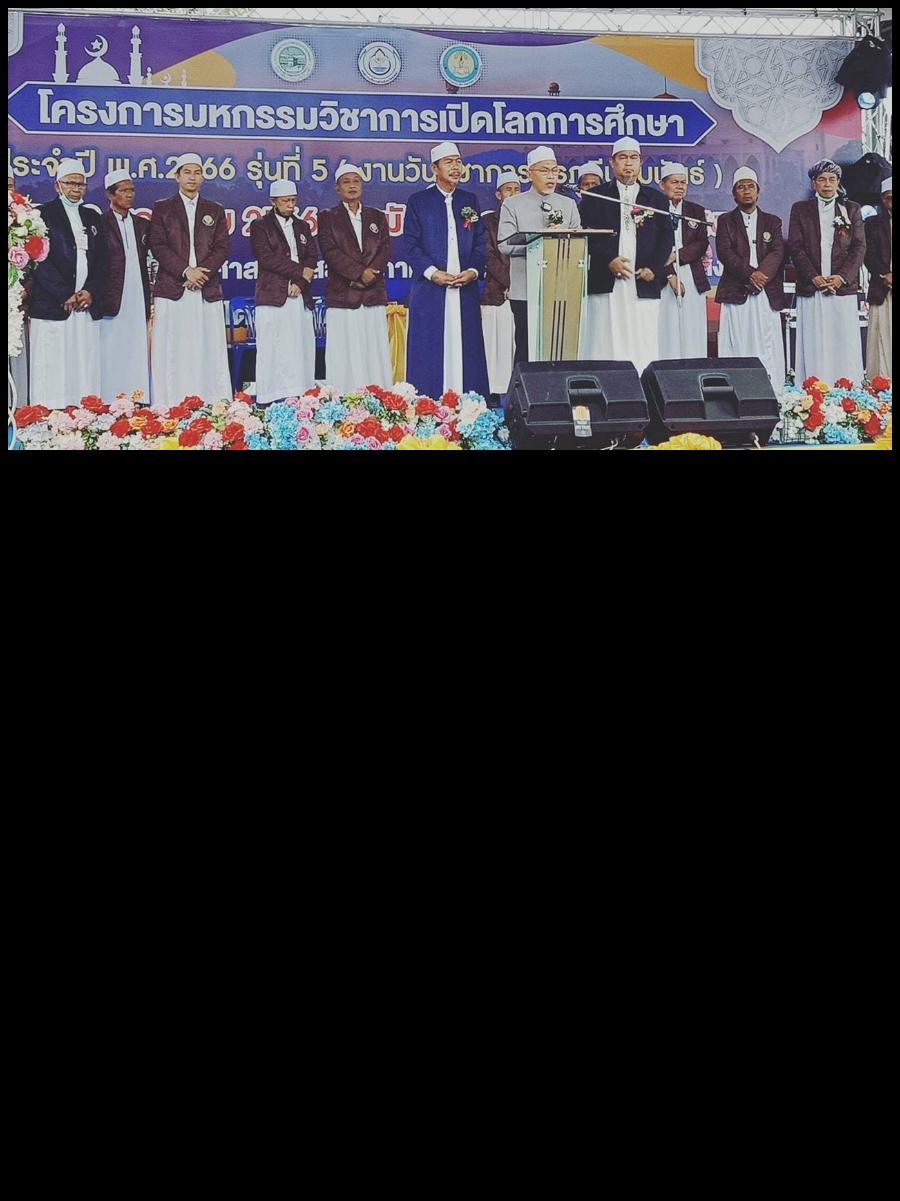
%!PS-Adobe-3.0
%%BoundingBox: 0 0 900 1201
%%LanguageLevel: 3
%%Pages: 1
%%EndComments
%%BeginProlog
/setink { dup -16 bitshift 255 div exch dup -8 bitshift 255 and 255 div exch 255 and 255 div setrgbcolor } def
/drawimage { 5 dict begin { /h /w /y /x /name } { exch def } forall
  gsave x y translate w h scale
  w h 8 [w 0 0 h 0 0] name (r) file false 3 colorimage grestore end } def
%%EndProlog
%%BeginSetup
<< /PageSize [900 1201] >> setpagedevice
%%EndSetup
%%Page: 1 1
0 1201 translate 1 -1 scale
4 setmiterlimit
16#000000 setink
0 0 900 1201 rectfill
(img1.raw) 8 8 884 442 drawimage
showpage
%%EOF
